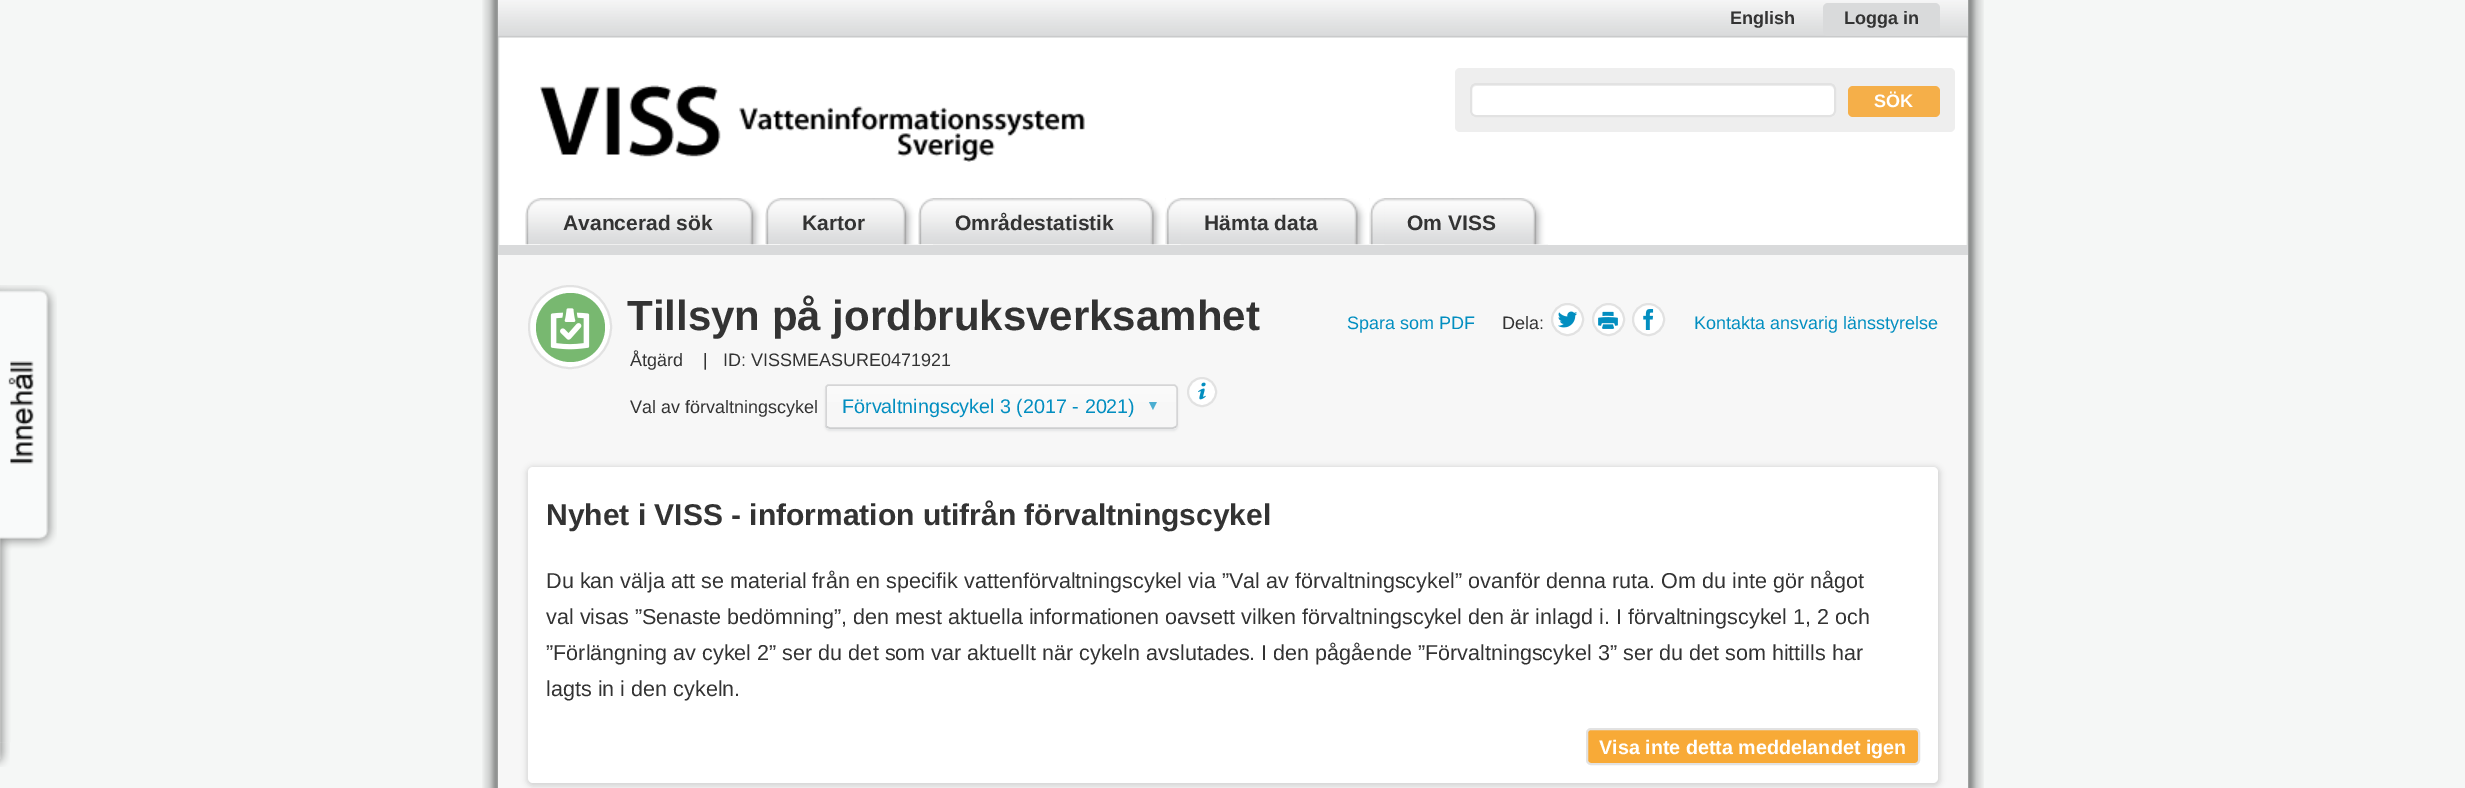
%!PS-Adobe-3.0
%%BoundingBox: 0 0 2465 788
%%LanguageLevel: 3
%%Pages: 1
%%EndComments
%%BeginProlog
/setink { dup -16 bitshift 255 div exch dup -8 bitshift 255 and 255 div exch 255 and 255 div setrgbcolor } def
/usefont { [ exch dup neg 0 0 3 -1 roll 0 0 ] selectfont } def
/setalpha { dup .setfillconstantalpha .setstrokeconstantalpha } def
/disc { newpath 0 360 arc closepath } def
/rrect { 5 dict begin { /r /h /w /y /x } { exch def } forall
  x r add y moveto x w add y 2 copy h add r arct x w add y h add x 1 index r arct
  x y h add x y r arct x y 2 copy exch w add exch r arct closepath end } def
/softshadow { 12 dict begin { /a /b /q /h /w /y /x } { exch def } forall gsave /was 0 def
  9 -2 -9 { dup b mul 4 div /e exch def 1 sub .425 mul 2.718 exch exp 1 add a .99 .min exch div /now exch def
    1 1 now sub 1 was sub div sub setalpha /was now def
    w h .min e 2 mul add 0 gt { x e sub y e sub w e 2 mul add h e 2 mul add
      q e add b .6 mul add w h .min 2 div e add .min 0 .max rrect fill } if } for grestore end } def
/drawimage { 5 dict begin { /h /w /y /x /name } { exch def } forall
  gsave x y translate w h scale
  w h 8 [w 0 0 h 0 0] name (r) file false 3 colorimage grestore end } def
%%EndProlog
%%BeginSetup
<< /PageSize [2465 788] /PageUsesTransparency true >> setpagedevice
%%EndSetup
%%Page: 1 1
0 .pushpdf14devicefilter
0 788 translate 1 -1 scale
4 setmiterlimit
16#F5F7F6 setink
0 0 2465 788 rectfill
(img1.raw) 482 0 1502 788 drawimage
(img2.raw) 498 0 1470 38 drawimage
/LiberationSans-Bold 18 usefont
16#333333 setink
1730 24 moveto (English) show
16#D9DADB setink
1823 3 117 33 5 rrect fill
16#333333 setink
1844 24 moveto (Logga in) show
(img3.raw) 540 85 545 77 drawimage
16#EEEEEE setink
1455 68 500 64 5 rrect fill
16#FFFFFF setink
1470 83 366 34 6 rrect fill
16#F0F0F0 setink
1476 86 moveto 1830 86 lineto 1832 86 1834 88 1834 90 curveto 1834 112 lineto 1833 115 lineto 1834 114 1835 112 1835 111 curveto 1835 89 lineto 1835 86 1833 84 1830 84 curveto 1477 84 lineto 1474 84 1472 86 1472 89 curveto 1472 90 lineto 1472 88 1474 86 1476 86 curveto closepath fill
16#E2E2E2 setink
2 setlinewidth
1471 84 364 32 5 rrect stroke
16#F5AF49 setink
1848 86 92 31 5 rrect fill
16#FFFFFF setink
1874 107 moveto (SÖK) show
16#D9DADB setink
499 245 1469 10 rectfill
(img4.raw) 525 198 240 47 drawimage
(img5.raw) 540 198 225 47 drawimage
/LiberationSans-Bold 21 usefont
16#333333 setink
563 230 moveto (Avancerad sök) show
(img6.raw) 765 198 153 47 drawimage
(img7.raw) 780 198 138 47 drawimage
802 230 moveto (Kartor) show
(img8.raw) 918 198 248 47 drawimage
(img9.raw) 933 198 233 47 drawimage
955 230 moveto (Områdestatistik) show
(img10.raw) 1165 198 205 47 drawimage
(img11.raw) 1180 198 190 47 drawimage
1204 230 moveto (Hämta data) show
(img12.raw) 1369 198 179 47 drawimage
(img13.raw) 1384 198 164 47 drawimage
1407 230 moveto (Om VISS) show
16#F7F7F7 setink
498 255 1470 533 rectfill
(img14.raw) 0 742 10 25 drawimage
(img15.raw) 0 285 57 458 drawimage
16#FFFFFF setink
570 327 41 disc gsave fill grestore
16#E2E2E2 setink
stroke
16#78B870 setink
570.5 327.5 34.5 disc fill
(img16.raw) 550 308 40 42 drawimage
/LiberationSans-Bold 42 usefont
16#333333 setink
627 330 moveto (Tillsyn på jordbruksverksamhet) show
/LiberationSans-Regular 18 usefont
16#028EC0 setink
1347 329 moveto (Spara som PDF) show
16#333333 setink
1502 329 moveto (Dela:) show
16#FFFFFF setink
1567.5 319.5 15.5 disc gsave fill grestore
16#E2E2E2 setink
stroke
(img17.raw) 1558 311 20 17 drawimage
16#FFFFFF setink
1608.5 319.5 15.5 disc gsave fill grestore
16#E2E2E2 setink
stroke
(img18.raw) 1598 311 20 18 drawimage
16#FFFFFF setink
1648.5 319.5 15.5 disc gsave fill grestore
16#E2E2E2 setink
stroke
(img19.raw) 1643 309 11 21 drawimage
16#028EC0 setink
1694 329 moveto (Kontakta ansvarig länsstyrelse) show
16#333333 setink
[
    [(Åtgärd) 630 366]
    [(|) 703 366]
    [(ID: VISSMEASURE0471921) 723 366]
    [(Val av förvaltningscykel) 630 413]
] { aload pop moveto show } forall
16#10161A setink
825 386 353 45 5 1 0.07 softshadow
16#F7F7F7 setink
825 384 353 45 5 rrect fill
gsave 827 386 moveto 1176 386 lineto 1176 402 lineto 827 402 lineto closepath clip newpath
<< /ShadingType 2 /ColorSpace /DeviceRGB /Coords [1001 386 1001 428] /Extend [true true] /Function << /FunctionType 2 /Domain [0 1] /C0 [0.984 0.984 0.984] /C1 [0.969 0.969 0.969] /N 1 >> >> shfill grestore
16#CDCECF setink
1.5 setlinewidth
1175.5 427 moveto 1173 428 lineto 829.5 428 lineto 827 427 lineto stroke
0.15 setalpha
16#10161A setink
827 427 moveto 826 426.5 826 425.5 826 424.5 curveto 826 388.5 lineto 826 387.5 826 386.5 827 386 curveto 827.5 385 828.5 385 829.5 385 curveto 1173 385 lineto 1174 385 1175 385 1175.5 386 curveto 1176.5 386.5 1177 387.5 1177 388.5 curveto 1177 424.5 lineto 1177 425.5 1176.5 426.5 1175.5 427 curveto stroke
/LiberationSans-Regular 19.75 usefont
1 setalpha
16#028EC0 setink
842 413 moveto (Förvaltningscykel 3 \(2017 - 2021\)) show
/LiberationSans-Regular 14 usefont
16#4CAED1 setink
1146 410 moveto 3 0 (▼) ashow
16#FFFFFF setink
1202 392 14 disc gsave fill grestore
16#E2E2E2 setink
2 setlinewidth
stroke
(img20.raw) 1198 382 8 18 drawimage
16#000000 setink
527 467 1413 319 6 3 0.15 softshadow
16#FFFFFF setink
528 467 1410 316 5 rrect fill
/LiberationSans-Bold 30 usefont
16#333333 setink
546 525 moveto (Nyhet i VISS - information utifrån förvaltningscykel) show
/LiberationSans-Regular 21.6 usefont
[
    [(Du kan välja att se material från en specifik vattenförvaltningscykel via ”Val av förvaltningscykel” ovanför denna ruta. Om du inte gör något) 546 588]
    [(val visas ”Senaste bedömning”, den mest aktuella informationen oavsett vilken förvaltningscykel den är inlagd i. I förvaltningscykel 1, 2 och) 546 624]
    [(”Förlängning av cykel 2” ser du det som var aktuellt när cykeln avslutades. I den pågående ”Förvaltningscykel 3” ser du det som hittills har) 546 660]
    [(lagts in i den cykeln.) 546 696]
] { aload pop moveto show } forall
16#F8AA37 setink
1587 729 332 35 4 rrect gsave fill grestore
16#E2E2E2 setink
stroke
/LiberationSans-Bold 19.75 usefont
16#FFFFFF setink
1599 754 moveto (Visa inte detta meddelandet igen) show
.poppdf14devicefilter showpage
%%EOF
